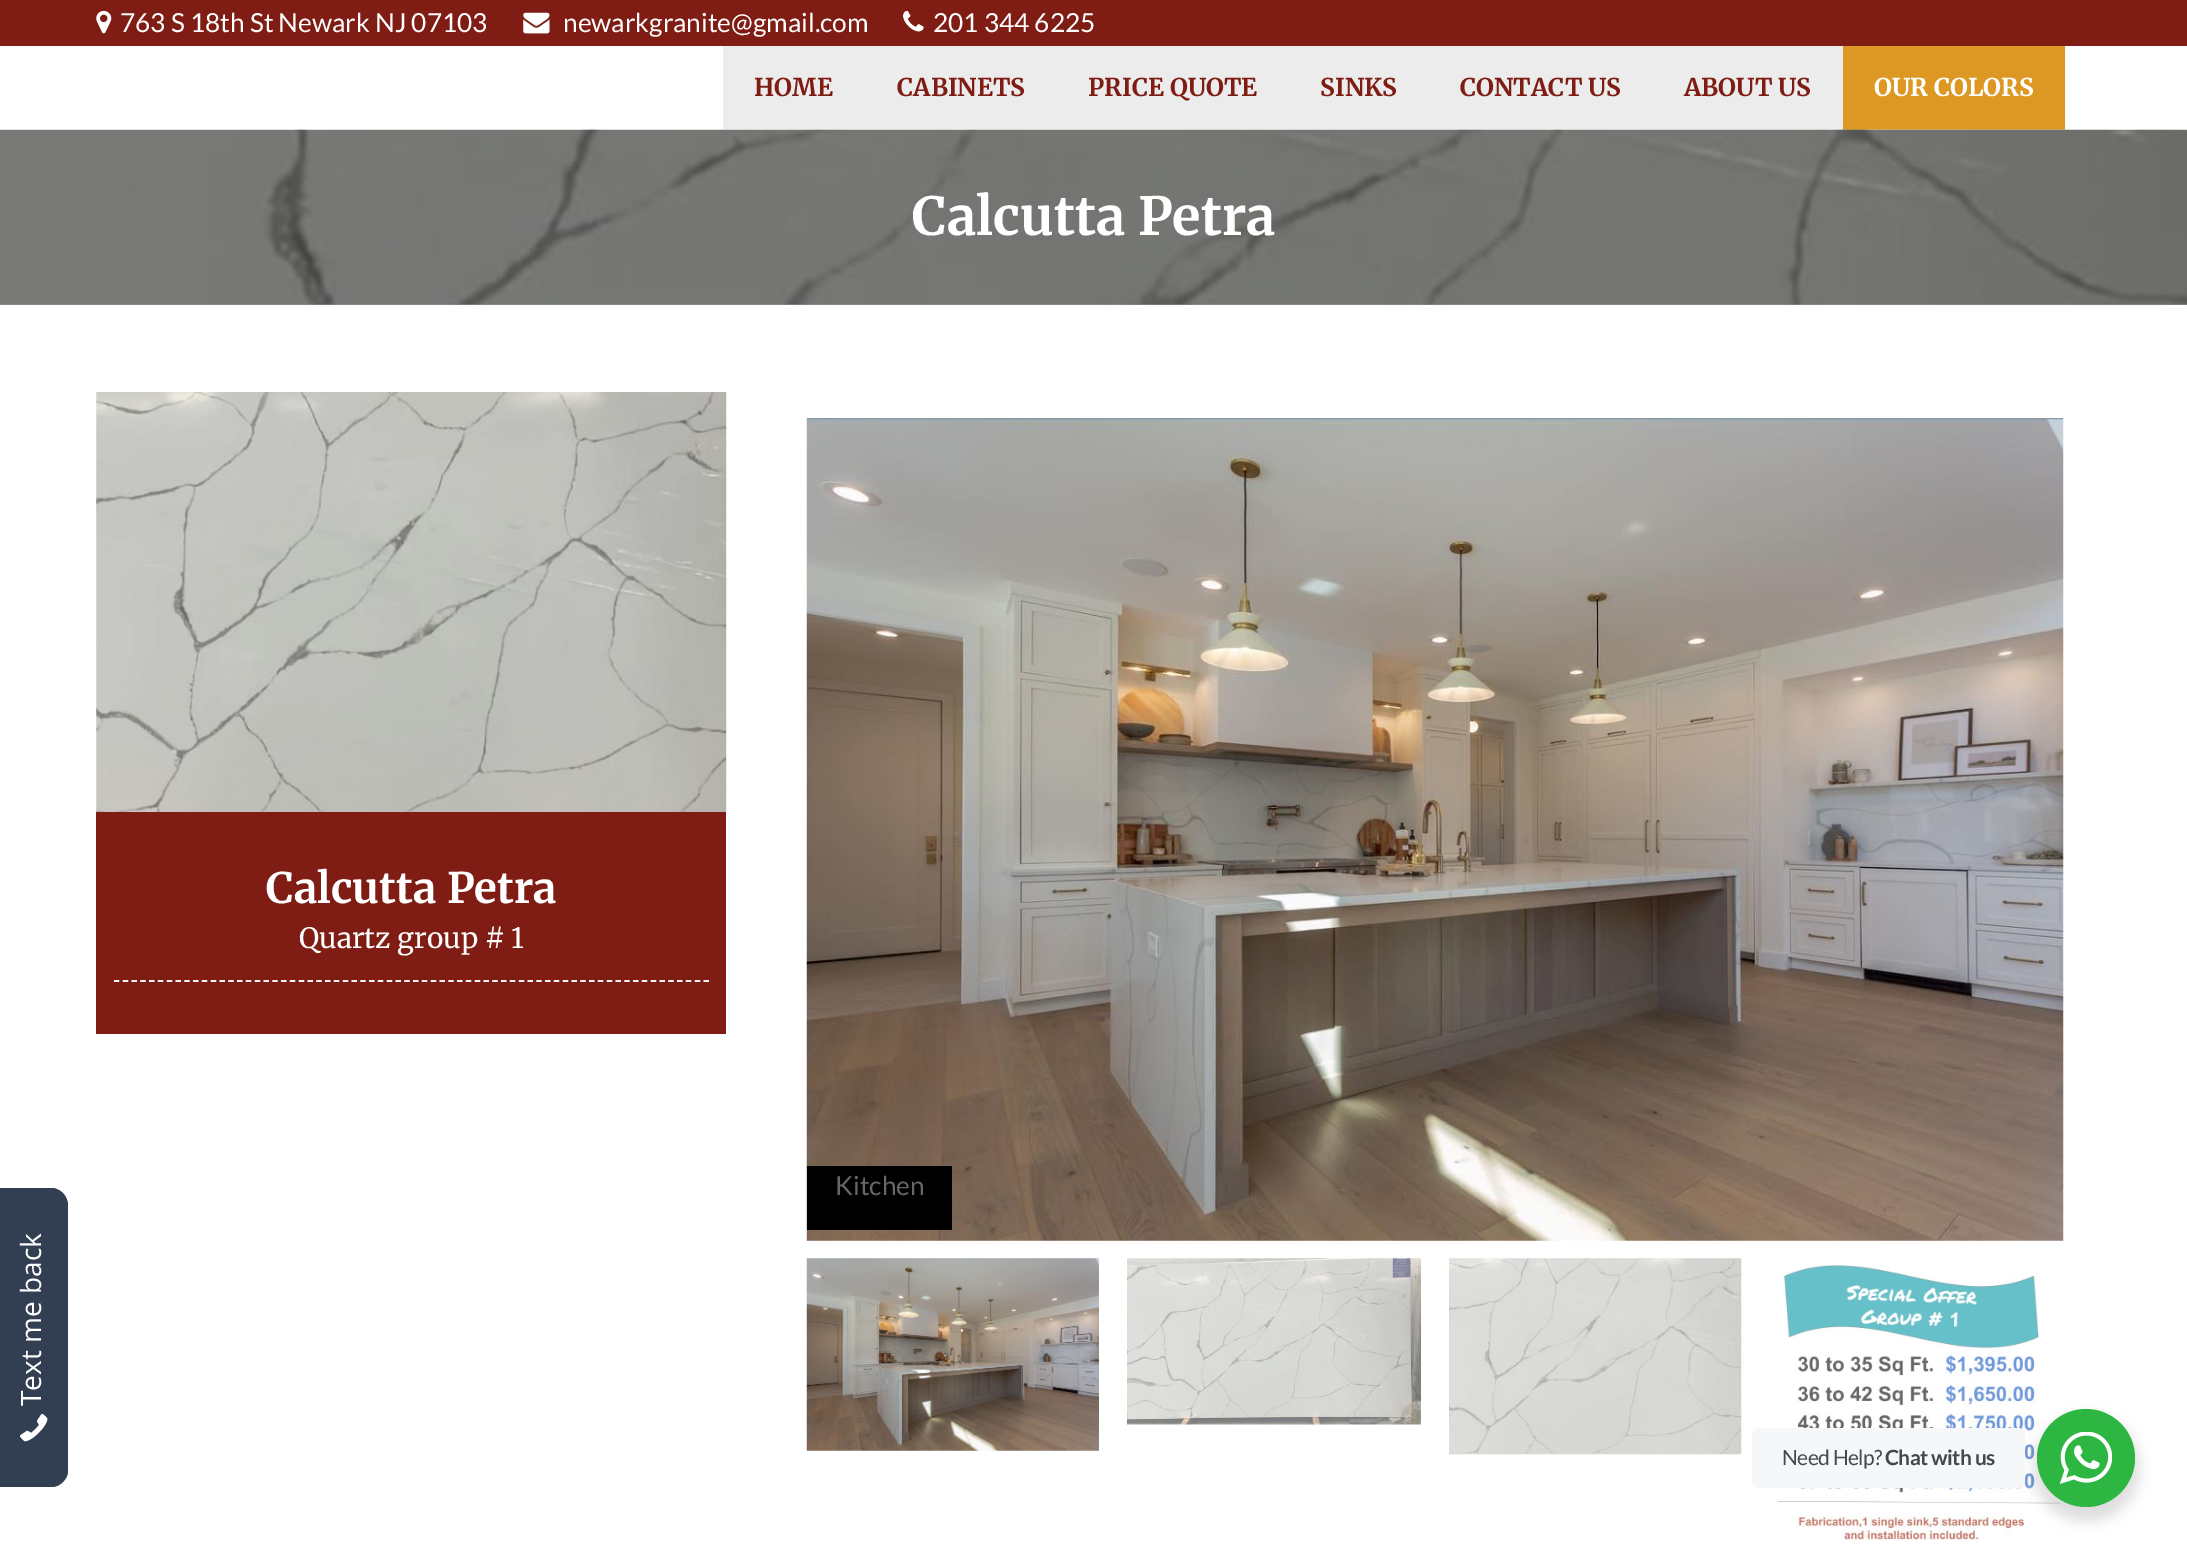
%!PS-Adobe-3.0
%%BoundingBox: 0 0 2187 1559
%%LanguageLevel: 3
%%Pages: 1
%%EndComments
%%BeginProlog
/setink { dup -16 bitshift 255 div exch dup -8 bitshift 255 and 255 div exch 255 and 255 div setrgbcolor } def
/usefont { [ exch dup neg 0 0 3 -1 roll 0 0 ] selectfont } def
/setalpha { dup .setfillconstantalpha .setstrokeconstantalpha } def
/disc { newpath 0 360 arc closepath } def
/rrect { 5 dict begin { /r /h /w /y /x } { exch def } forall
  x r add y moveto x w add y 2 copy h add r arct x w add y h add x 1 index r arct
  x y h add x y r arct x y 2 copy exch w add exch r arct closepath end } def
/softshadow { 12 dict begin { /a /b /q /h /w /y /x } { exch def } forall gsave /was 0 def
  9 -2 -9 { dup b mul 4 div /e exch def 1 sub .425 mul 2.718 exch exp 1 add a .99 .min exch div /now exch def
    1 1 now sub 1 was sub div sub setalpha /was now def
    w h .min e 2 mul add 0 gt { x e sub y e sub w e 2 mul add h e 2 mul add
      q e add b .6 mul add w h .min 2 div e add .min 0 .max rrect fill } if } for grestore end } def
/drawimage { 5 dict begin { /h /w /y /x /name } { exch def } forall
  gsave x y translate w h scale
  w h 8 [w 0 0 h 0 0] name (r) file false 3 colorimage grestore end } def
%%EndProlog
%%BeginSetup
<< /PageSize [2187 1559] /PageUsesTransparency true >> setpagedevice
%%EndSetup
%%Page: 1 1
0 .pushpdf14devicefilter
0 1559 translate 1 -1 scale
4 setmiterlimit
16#FFFFFF setink
0 0 2187 1559 rectfill
16#959595 setink
0 304 2187 1 rectfill
16#7F1D14 setink
0 0 2187 46 rectfill
(img1.raw) 96 10 16 24 drawimage
/Lato-Regular 26.25 usefont
16#FFFFFF setink
120 32 moveto (763 S 18th St Newark NJ 07103) show
(img2.raw) 523 12 27 22 drawimage
563 32 moveto (newarkgranite@gmail.com) show
(img3.raw) 903 10 21 22 drawimage
933 32 moveto (201 344 6225) show
16#ECECEC setink
723 46 1120 84 rectfill
/Merriweather-Bold 24.5 usefont
16#7F1D14 setink
[
    [(HOME) 754 96]
    [(CABINETS) 897 96]
    [(PRICE QUOTE) 1088 96]
    [(SINKS) 1320 96]
    [(CONTACT US) 1460 96]
    [(ABOUT US) 1684 96]
] { aload pop moveto show } forall
16#DC9822 setink
1843 46 222 84 rectfill
16#FFFFFF setink
1874 96 moveto (OUR COLORS) show
(img4.raw) 0 129 2187 176 drawimage
/Merriweather-Bold 52.5 usefont
912 235 moveto (Calcutta Petra) show
(img5.raw) 96 392 631 420 drawimage
16#7F1D14 setink
96 812 630 222 rectfill
/Merriweather-Bold 42 usefont
16#FFFFFF setink
266 903 moveto (Calcutta Petra) show
16#F7F7F7 setink
1.8 setlinewidth
[5.25 3.55] 0 setdash
114 981 moveto 709 981 lineto stroke
/Merriweather-Regular 28 usefont
16#FFFFFF setink
299 948 moveto (Quartz group # 1) show
(img6.raw) 806 418 1258 823 drawimage
16#000000 setink
807 1166 145 64 rectfill
/Lato-Regular 26.25 usefont
16#676767 setink
835 1195 moveto (Kitchen) show
(img7.raw) 806 1258 293 193 drawimage
(img8.raw) 1127 1258 294 167 drawimage
(img9.raw) 1449 1258 293 197 drawimage
(img10.raw) 1776 1265 285 276 drawimage
16#323F52 setink
0 1487 moveto 0 1188 lineto 51 1188 lineto 60 1188 68 1196 68 1206 curveto 68 1470 lineto 68 1479 60 1487 51 1487 curveto closepath fill
0 1487 moveto 0 1188 lineto 51 1188 lineto 60 1188 68 1196 68 1206 curveto 68 1470 lineto 68 1479 60 1487 51 1487 curveto closepath 0 1485 moveto 0 1190 lineto 51 1190 lineto 59 1190 66 1197 66 1206 curveto 66 1470 lineto 66 1478 59 1485 51 1485 curveto closepath eofill
/OpenSans-Regular 28 usefont
16#FFFFFF setink
gsave 41 1406 translate -90 rotate 0 0 moveto (Text me back) show grestore
(img11.raw) 20 1413 28 29 drawimage
16#000000 setink
2034 1416 105 105 52.5 7 0.14 softshadow
16#F5F7F9 setink
1752 1428 273 60 7 rrect fill
/Lato-Regular 21 usefont
16#43474E setink
1782 1465 moveto -0.6 0 (Need Help?) ashow
/Lato-Bold 21 usefont
1885 1465 moveto -0.6 0 (Chat with us) ashow
16#2DB742 setink
2086 1458 49 disc fill
(img12.raw) 2060 1432 52 52 drawimage
.poppdf14devicefilter showpage
%%EOF
